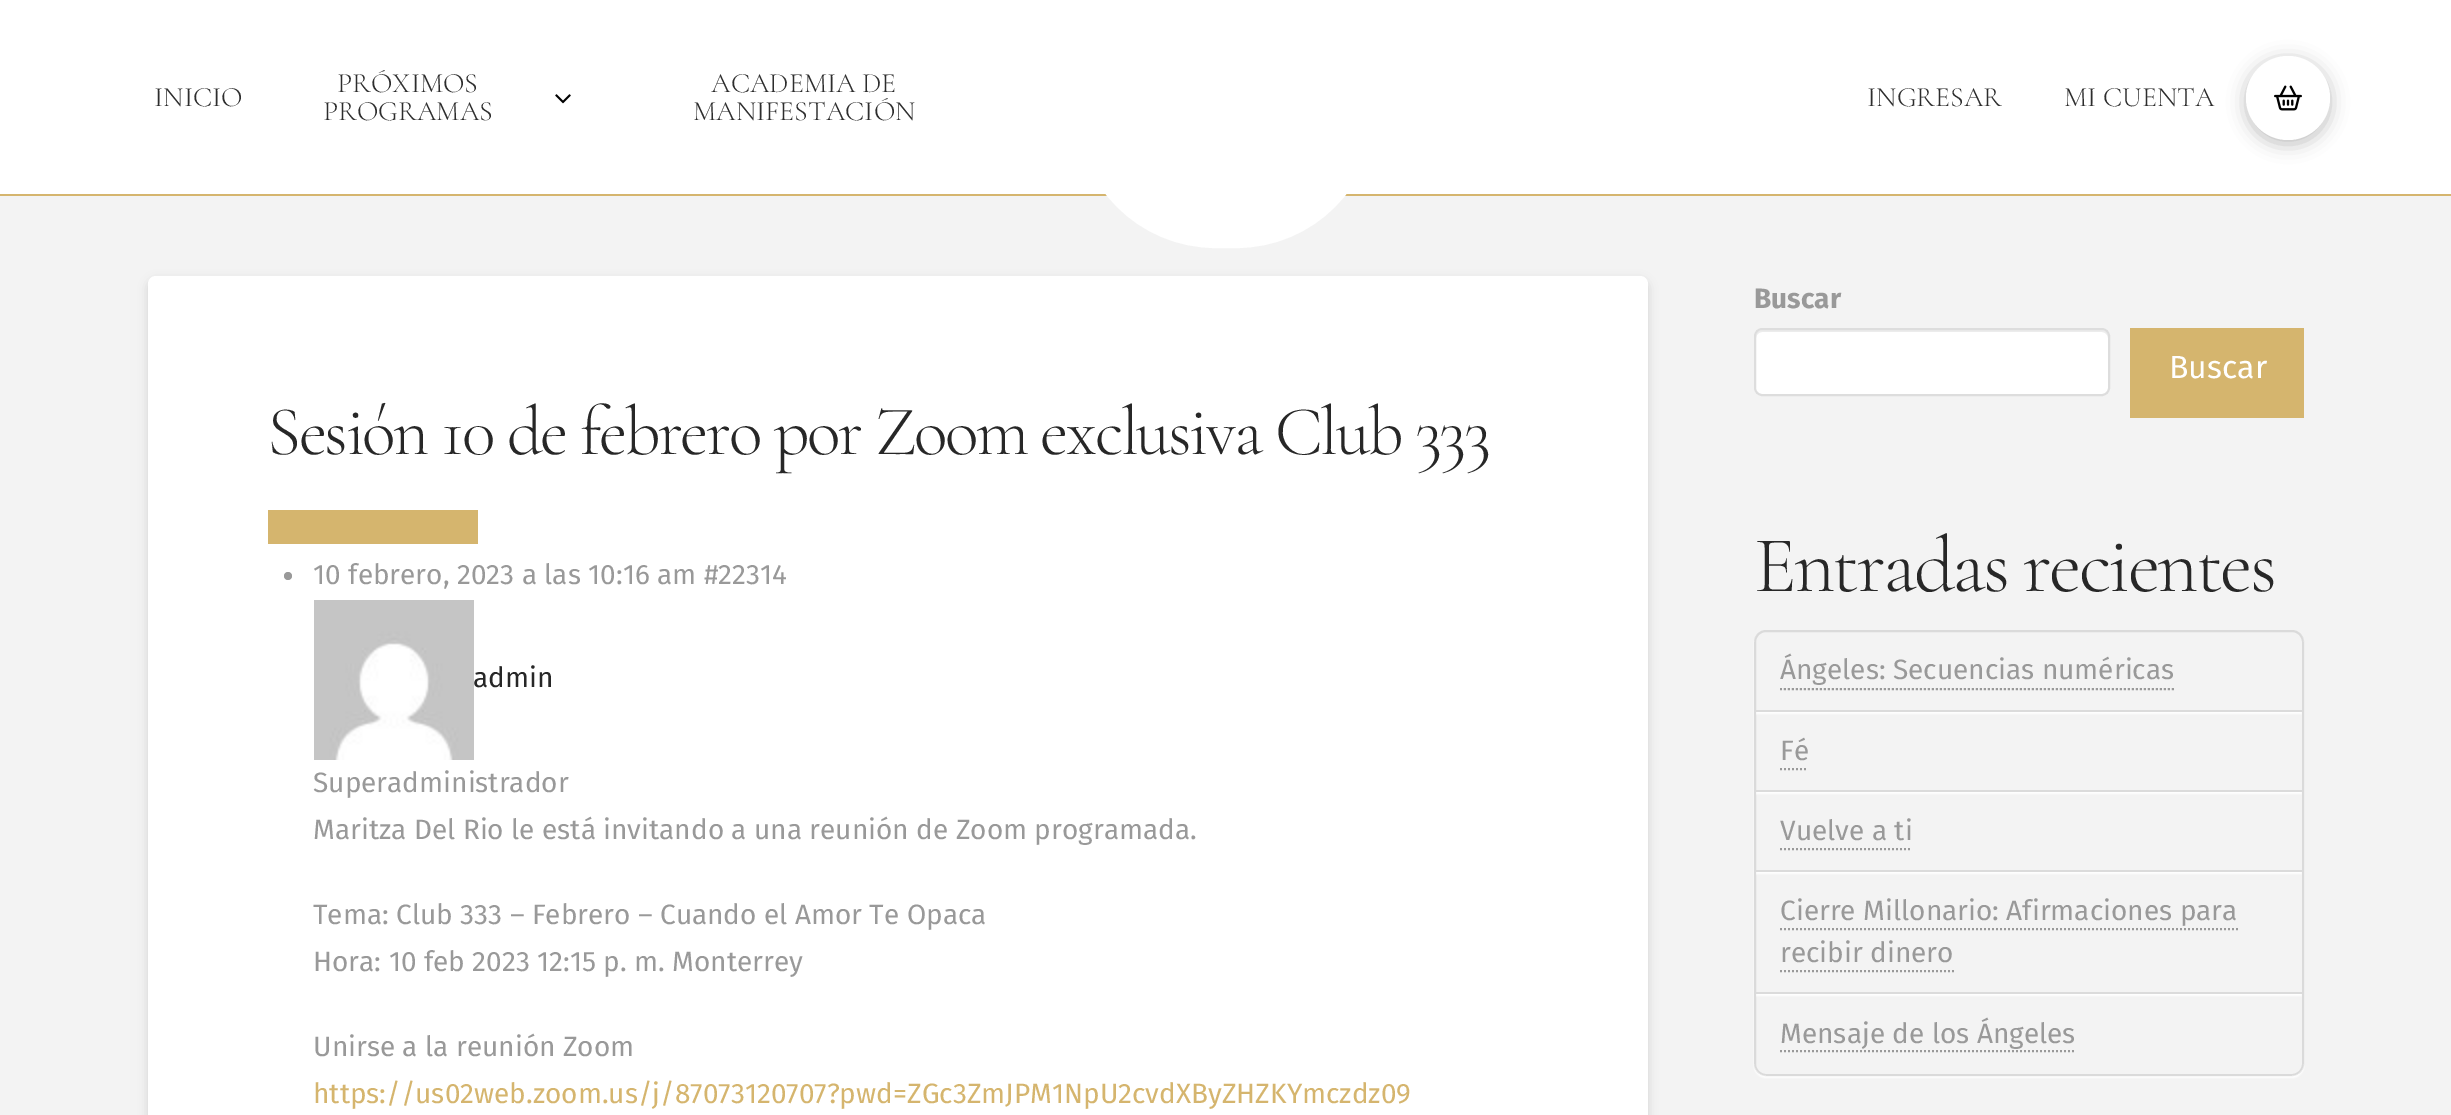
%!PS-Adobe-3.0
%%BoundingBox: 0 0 2451 1115
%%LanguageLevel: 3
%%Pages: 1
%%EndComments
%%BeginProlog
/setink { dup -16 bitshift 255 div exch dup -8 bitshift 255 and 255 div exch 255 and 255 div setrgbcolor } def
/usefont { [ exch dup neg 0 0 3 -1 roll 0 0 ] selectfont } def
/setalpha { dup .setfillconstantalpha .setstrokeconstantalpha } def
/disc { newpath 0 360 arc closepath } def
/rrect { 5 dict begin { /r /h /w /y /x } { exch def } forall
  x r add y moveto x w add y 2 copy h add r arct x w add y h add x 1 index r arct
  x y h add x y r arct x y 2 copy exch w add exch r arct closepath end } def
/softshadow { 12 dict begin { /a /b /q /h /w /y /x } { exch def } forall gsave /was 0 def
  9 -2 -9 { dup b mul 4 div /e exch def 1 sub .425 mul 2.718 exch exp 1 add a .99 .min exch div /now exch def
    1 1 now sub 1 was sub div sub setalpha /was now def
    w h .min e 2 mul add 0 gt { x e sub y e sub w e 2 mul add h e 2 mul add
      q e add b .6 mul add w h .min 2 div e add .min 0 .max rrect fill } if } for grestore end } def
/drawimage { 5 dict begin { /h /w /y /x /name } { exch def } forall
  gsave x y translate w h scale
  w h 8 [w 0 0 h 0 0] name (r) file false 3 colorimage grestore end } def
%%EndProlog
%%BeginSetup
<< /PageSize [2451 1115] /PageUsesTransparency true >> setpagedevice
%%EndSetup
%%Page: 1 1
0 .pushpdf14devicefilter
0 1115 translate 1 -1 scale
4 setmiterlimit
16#F3F3F3 setink
0 0 2451 1115 rectfill
16#FFFFFF setink
0 0 2451 194 rectfill
16#D5B56E setink
0 194 2451 2 rectfill
/CormorantGaramond-Light 28 usefont
16#2D2D2D setink
[
    [(INICIO) 154 106]
    [(PRÓXIMOS) 337 92]
    [(PROGRAMAS) 323 120]
] { aload pop moveto show } forall
(img1.raw) 555 94 16 10 drawimage
711 92 moveto (ACADEMIA DE) show
693 120 moveto (MANIFESTACIÓN) show
16#FFFFFF setink
1090 -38 272 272 126 rrect gsave fill grestore
28 setlinewidth
stroke
16#2D2D2D setink
1867 106 moveto (INGRESAR) show
2064 106 moveto (MI CUENTA) show
16#000000 setink
2246 60 84 84 42 9 0.25 softshadow
16#FFFFFF setink
2288 98 42 disc fill
(img2.raw) 2274 85 28 26 drawimage
16#000000 setink
148 280 1500 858 8 5 0.13 softshadow
16#FFFFFF setink
148 276 1500 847 8 rrect fill
/CormorantGaramond-Light 70 usefont
16#272727 setink
267 454 moveto -2.45 0 (Sesión 10 de febrero por Zoom exclusiva Club 333) ashow
16#D5B56E setink
268 510 210 34 rectfill
16#999999 setink
288 576 4 disc fill
/FiraSans-Regular 28 usefont
313 584 moveto (10 febrero, 2023 a las 10:16 am #22314) show
(img3.raw) 314 600 160 160 drawimage
16#272727 setink
473 687 moveto (admin) show
16#999999 setink
[
    [(Superadministrador) 313 792]
    [(Maritza Del Rio le está invitando a una reunión de Zoom programada.) 313 839]
    [(Tema: Club 333 – Febrero – Cuando el Amor Te Opaca) 313 924]
    [(Hora: 10 feb 2023 12:15 p. m. Monterrey) 313 971]
    [(Unirse a la reunión Zoom) 313 1056]
] { aload pop moveto show } forall
16#D5B56E setink
313 1103 moveto (https://us02web.zoom.us/j/87073120707?pwd=ZGc3ZmJPM1NpU2cvdXByZHZKYmczdz09) show
/FiraSans-Bold 28 usefont
16#999999 setink
1754 308 moveto (Buscar) show
16#FFFFFF setink
1754 328 356 68 8 rrect fill
16#ECECEC setink
1762 332 moveto 2102 332 lineto 2105 332 2108 335 2108 338 curveto 2108 336 lineto 2108 333 2105 330 2102 330 curveto 1762 330 lineto 1759 330 1756 333 1756 336 curveto 1756 338 lineto 1756 335 1759 332 1762 332 curveto closepath fill
16#DDDDDD setink
2 setlinewidth
1755 329 354 66 7 rrect stroke
16#D5B56E setink
2130 328 174 90 rectfill
/FiraSans-Regular 32 usefont
16#FFFFFF setink
2169 378 moveto (Buscar) show
/CormorantGaramond-Light 80 usefont
16#272727 setink
1754 591 moveto -2.75 0 (Entradas recientes) ashow
gsave
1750 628 moveto 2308 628 lineto 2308 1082 lineto 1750 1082 lineto closepath 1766 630 moveto 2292 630 lineto 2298.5 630 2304 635.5 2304 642 curveto 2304 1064 lineto 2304 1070.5 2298.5 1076 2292 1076 curveto 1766 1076 lineto 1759.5 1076 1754 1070.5 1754 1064 curveto 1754 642 lineto 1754 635.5 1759.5 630 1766 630 curveto closepath eoclip newpath
16#FFFFFF setink
1754 632 550 446 12 1 0.95 softshadow
grestore
0.1 setalpha
16#000000 setink
1755 631 548 444 11 rrect stroke
gsave
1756 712 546 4 rectclip
1 setalpha
16#FFFFFF setink
1756 634 546 80 0 1 0.95 softshadow
grestore
1 setalpha
16#DBDBDB setink
1756 710 546 2 rectfill
/FiraSans-Regular 28 usefont
16#999999 setink
1780 679 moveto (Ángeles: Secuencias numéricas) show
[2 2] 0 setdash
1780 689 moveto 2174 689 lineto stroke
gsave
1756 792 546 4 rectclip
16#FFFFFF setink
1756 714 546 80 0 1 0.95 softshadow
grestore
16#DBDBDB setink
1756 790 546 2 rectfill
16#999999 setink
1780 760 moveto (Fé) show
1780 769 moveto 1808 769 lineto stroke
gsave
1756 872 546 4 rectclip
16#FFFFFF setink
1756 794 546 80 0 1 0.95 softshadow
grestore
16#DBDBDB setink
1756 870 546 2 rectfill
16#999999 setink
1780 840 moveto (Vuelve a ti) show
1780 849 moveto 1912 849 lineto stroke
gsave
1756 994 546 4 rectclip
16#FFFFFF setink
1756 874 546 122 0 1 0.95 softshadow
grestore
16#DBDBDB setink
1756 992 546 2 rectfill
16#999999 setink
1780 920 moveto (Cierre Millonario: Afirmaciones para) show
1780 929 moveto 2238 929 lineto stroke
1780 962 moveto (recibir dinero) show
1780 971 moveto 1954 971 lineto stroke
1780 1043 moveto (Mensaje de los Ángeles) show
1780 1051 moveto 2076 1051 lineto stroke
.poppdf14devicefilter showpage
%%EOF
